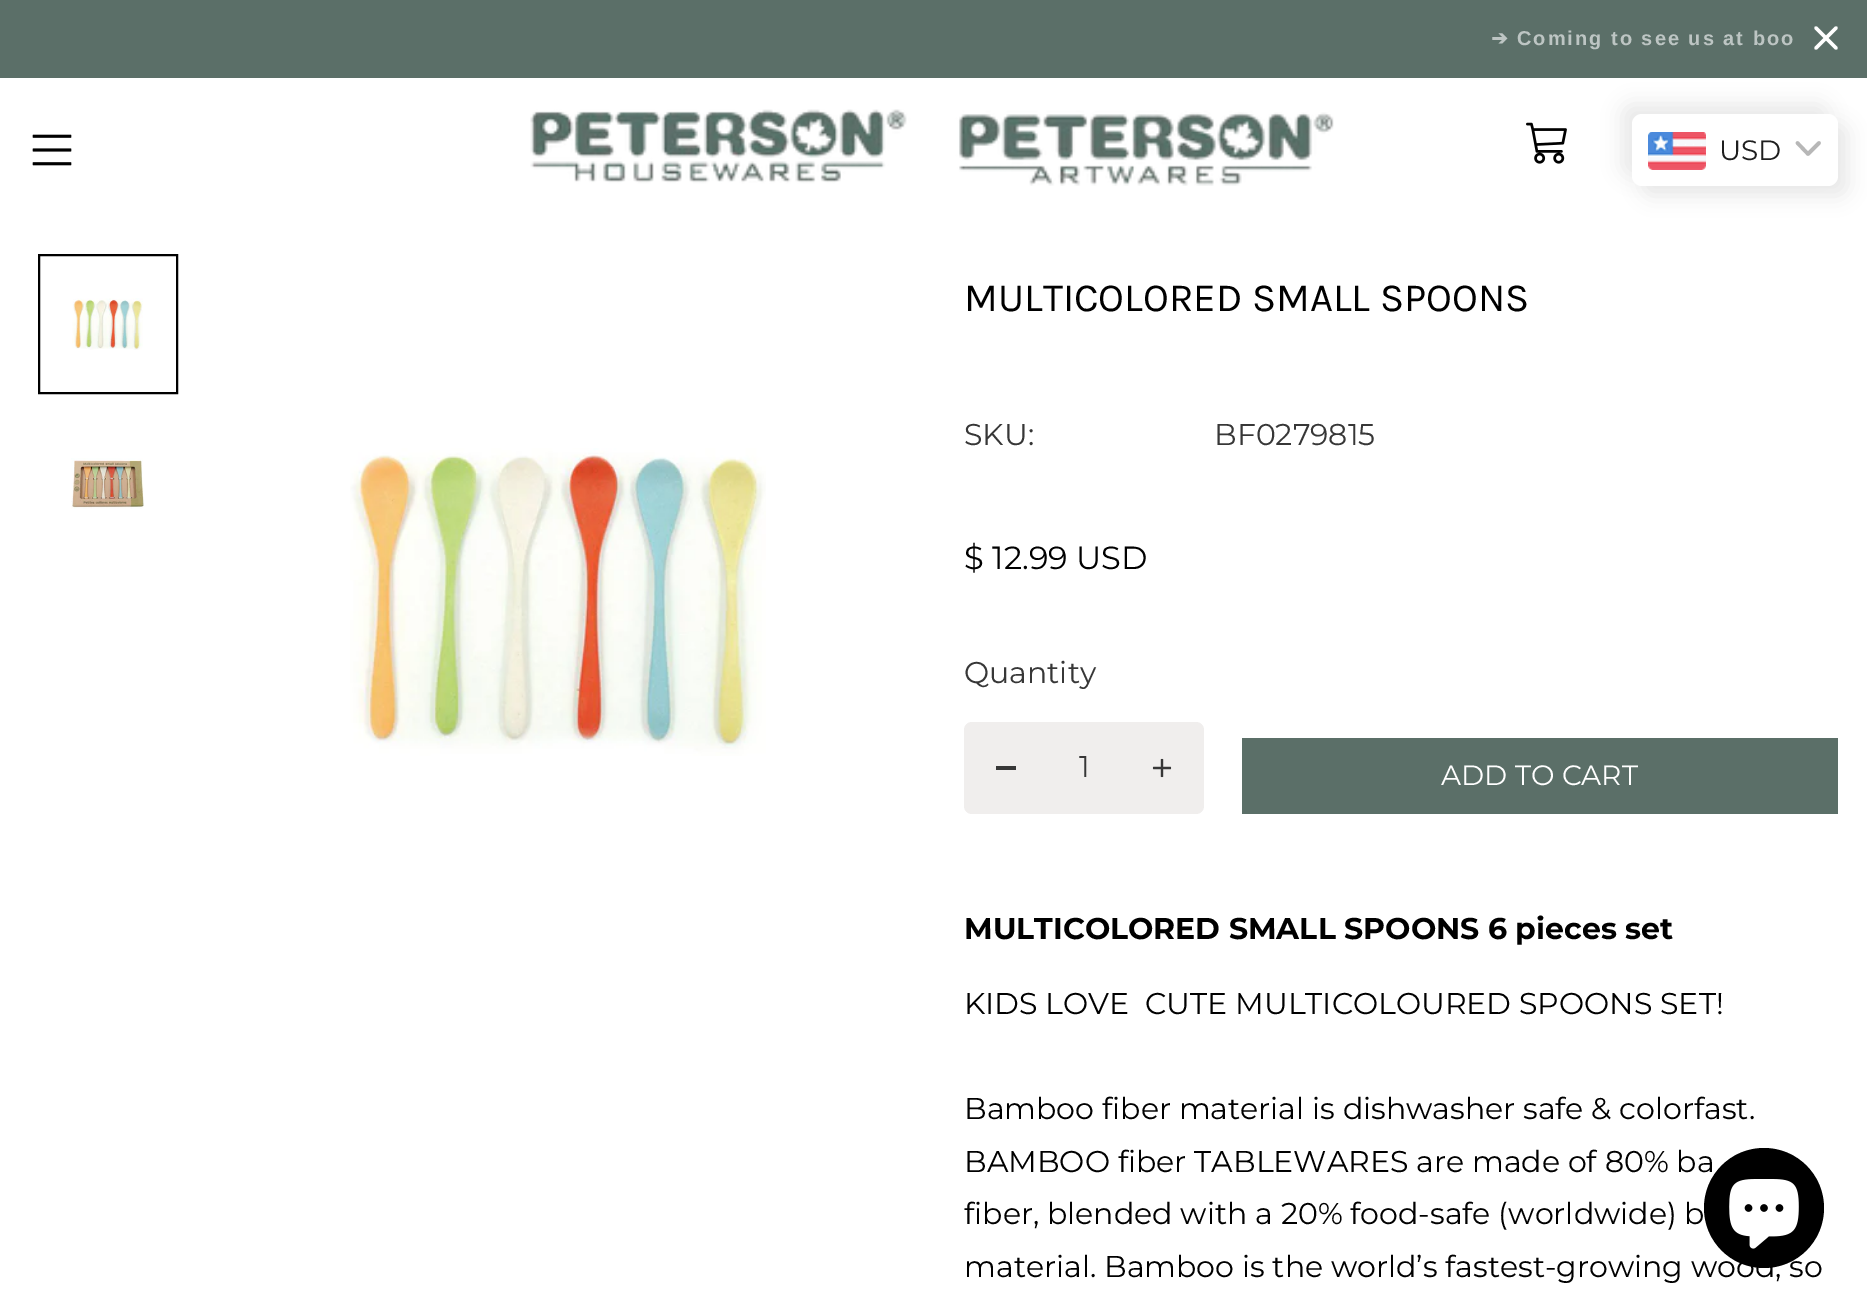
%!PS-Adobe-3.0
%%BoundingBox: 0 0 1867 1310
%%LanguageLevel: 3
%%Pages: 1
%%EndComments
%%BeginProlog
/setink { dup -16 bitshift 255 div exch dup -8 bitshift 255 and 255 div exch 255 and 255 div setrgbcolor } def
/usefont { [ exch dup neg 0 0 3 -1 roll 0 0 ] selectfont } def
/setalpha { dup .setfillconstantalpha .setstrokeconstantalpha } def
/disc { newpath 0 360 arc closepath } def
/rrect { 5 dict begin { /r /h /w /y /x } { exch def } forall
  x r add y moveto x w add y 2 copy h add r arct x w add y h add x 1 index r arct
  x y h add x y r arct x y 2 copy exch w add exch r arct closepath end } def
/softshadow { 12 dict begin { /a /b /q /h /w /y /x } { exch def } forall gsave /was 0 def
  9 -2 -9 { dup b mul 4 div /e exch def 1 sub .425 mul 2.718 exch exp 1 add a .99 .min exch div /now exch def
    1 1 now sub 1 was sub div sub setalpha /was now def
    w h .min e 2 mul add 0 gt { x e sub y e sub w e 2 mul add h e 2 mul add
      q e add b .6 mul add w h .min 2 div e add .min 0 .max rrect fill } if } for grestore end } def
/drawimage { 5 dict begin { /h /w /y /x /name } { exch def } forall
  gsave x y translate w h scale
  w h 8 [w 0 0 h 0 0] name (r) file false 3 colorimage grestore end } def
%%EndProlog
%%BeginSetup
<< /PageSize [1867 1310] /PageUsesTransparency true >> setpagedevice
%%EndSetup
%%Page: 1 1
0 .pushpdf14devicefilter
0 1310 translate 1 -1 scale
4 setmiterlimit
16#FFFFFF setink
0 0 1867 1310 rectfill
16#5B6F68 setink
0 0 1867 78 rectfill
/DejaVuSans-Bold 20 usefont
16#BDC5C3 setink
1491 45 moveto 2 0 (➔) ashow
/LiberationSans-Bold 20 usefont
1517 45 moveto 2 0 (Coming to see us at boo) ashow
16#FFFFFF setink
3.3 setlinewidth
1 setlinecap
1 setlinejoin
1816 48 moveto 1836 28 lineto 1816 28 moveto 1836 48 lineto stroke
(img1.raw) 32 134 40 32 drawimage
(img2.raw) 530 109 804 77 drawimage
(img3.raw) 1526 122 41 42 drawimage
16#E8E8E8 setink
1622 104 206 72 10 10 1 softshadow
1642 124 206 72 10 10 1 softshadow
16#FFFFFF setink
1632 114 206 72 10 rrect fill
(img4.raw) 1648 132 58 38 drawimage
/Montserrat-Regular 28 usefont
16#1E1E1E setink
1719 160 moveto (USD) show
16#B7B7B7 setink
3.6 setlinewidth
1797.5 143 moveto 1808 154 lineto 1819 143 lineto stroke
16#000000 setink
2 setlinewidth
0 setlinecap
0 setlinejoin
39 255 138 138 rectstroke
(img5.raw) 72 298 71 52 drawimage
(img6.raw) 71 458 73 51 drawimage
(img7.raw) 350 448 416 308 drawimage
/Karla-Regular 40 usefont
964 311 moveto (MULTICOLORED SMALL SPOONS) show
/Montserrat-Regular 30 usefont
16#373737 setink
964 445 moveto (SKU:) show
1214 445 moveto (BF0279815) show
/Montserrat-Regular 32 usefont
16#000000 setink
964 569 moveto ($ 12.99 USD) show
/Montserrat-Regular 30 usefont
16#373737 setink
964 683 moveto (Quantity) show
16#F0EEED setink
964 722 240 92 8 rrect fill
16#373737 setink
996 766 20 4 rectfill
1079 777 moveto (1) show
(img8.raw) 1152 758 20 20 drawimage
16#5B6F68 setink
1242 738 596 76 rectfill
/Montserrat-Regular 28 usefont
16#FFFFFF setink
1441 785 moveto (ADD TO CART) show
/Montserrat-Bold 30 usefont
16#000000 setink
964 939 moveto (MULTICOLORED SMALL SPOONS 6 pieces set) show
/Montserrat-Regular 30 usefont
[
    [(KIDS LOVE  CUTE MULTICOLOURED SPOONS SET!) 964 1014]
    [(Bamboo fiber material is dishwasher safe & colorfast.) 964 1119]
    [(BAMBOO fiber TABLEWARES are made of 80% ba) 964 1172]
    [(fiber, blended with a 20% food-safe \(worldwide\) b) 964 1224]
    [(material. Bamboo is the world’s fastest-growing wood, so) 964 1277]
] { aload pop moveto show } forall
1764 1208 60 disc fill
(img9.raw) 1729 1179 70 70 drawimage
.poppdf14devicefilter showpage
%%EOF
